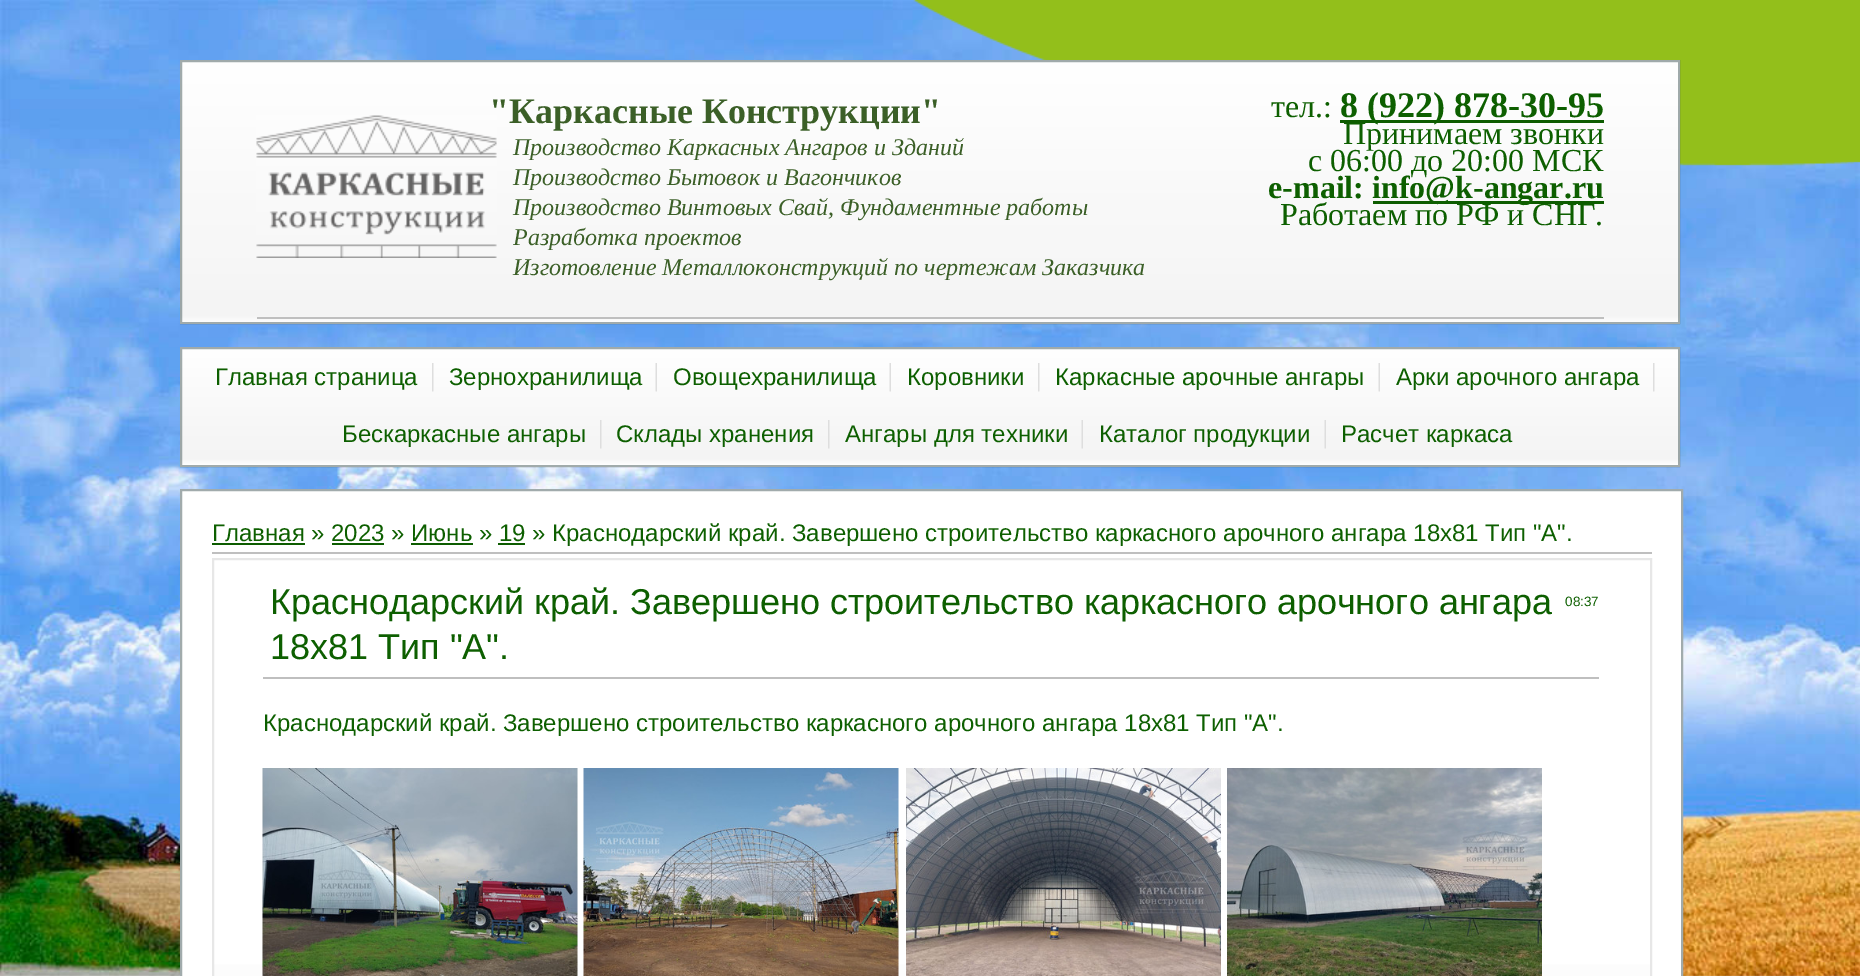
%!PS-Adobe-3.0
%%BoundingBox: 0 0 1860 976
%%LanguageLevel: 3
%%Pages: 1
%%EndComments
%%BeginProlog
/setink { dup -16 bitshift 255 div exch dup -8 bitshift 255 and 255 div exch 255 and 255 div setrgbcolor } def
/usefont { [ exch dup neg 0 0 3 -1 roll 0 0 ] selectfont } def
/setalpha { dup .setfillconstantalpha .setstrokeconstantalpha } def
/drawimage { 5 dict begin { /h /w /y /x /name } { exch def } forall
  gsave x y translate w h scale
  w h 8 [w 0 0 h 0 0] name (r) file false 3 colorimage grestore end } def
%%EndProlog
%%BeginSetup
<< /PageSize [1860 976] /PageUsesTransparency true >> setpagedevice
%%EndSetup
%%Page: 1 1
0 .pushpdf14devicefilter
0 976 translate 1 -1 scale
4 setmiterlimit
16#FFFFFF setink
0 0 1860 976 rectfill
(img1.raw) 0 0 1860 976 drawimage
(img2.raw) 913 0 947 166 drawimage
gsave 180 60 moveto 1680 60 lineto 1680 62 lineto 180 62 lineto closepath clip newpath
<< /ShadingType 2 /ColorSpace /DeviceRGB /Coords [930 62 930 -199] /Extend [true true] /Function << /FunctionType 3 /Domain [0 1] /Functions [<< /FunctionType 2 /Domain [0 1] /C0 [1 1 1] /C1 [0.957 0.957 0.957] /N 1 >> << /FunctionType 2 /Domain [0 1] /C0 [0.957 0.957 0.957] /C1 [1 1 1] /N 1 >>] /Bounds [0.03] /Encode [0 1 0 1] >> >> shfill grestore
gsave 180 62 moveto 1680 62 lineto 1680 323 lineto 180 323 lineto closepath clip newpath
<< /ShadingType 2 /ColorSpace /DeviceRGB /Coords [930 323 930 62] /Extend [true true] /Function << /FunctionType 3 /Domain [0 1] /Functions [<< /FunctionType 2 /Domain [0 1] /C0 [1 1 1] /C1 [0.957 0.957 0.957] /N 1 >> << /FunctionType 2 /Domain [0 1] /C0 [0.957 0.957 0.957] /C1 [1 1 1] /N 1 >>] /Bounds [0.03] /Encode [0 1 0 1] >> >> shfill grestore
gsave 180 323 moveto 1680 323 lineto 1680 324 lineto 180 324 lineto closepath clip newpath
<< /ShadingType 2 /ColorSpace /DeviceRGB /Coords [930 584 930 323] /Extend [true true] /Function << /FunctionType 3 /Domain [0 1] /Functions [<< /FunctionType 2 /Domain [0 1] /C0 [1 1 1] /C1 [0.957 0.957 0.957] /N 1 >> << /FunctionType 2 /Domain [0 1] /C0 [0.957 0.957 0.957] /C1 [1 1 1] /N 1 >>] /Bounds [0.03] /Encode [0 1 0 1] >> >> shfill grestore
0.5 setalpha
16#435758 setink
2 setlinewidth
181 61 1498 262 rectstroke
1 setalpha
(img3.raw) 256 115 241 143 drawimage
/LiberationSerif-Bold 36 usefont
16#3B5F27 setink
489 123 moveto ("Каркасные Конструкции") show
/LiberationSerif-Italic 24 usefont
[
    [(Производство Каркасных Ангаров и Зданий) 513 155]
    [(Производство Бытовок и Вагончиков) 513 185]
    [(Производство Винтовых Свай, Фундаментные работы) 513 215]
    [(Разработка проектов) 513 245]
    [(Изготовление Металлоконструкций по чертежам Заказчика) 513 275]
] { aload pop moveto show } forall
/LiberationSerif-Regular 32 usefont
16#0D5F00 setink
1271 117 moveto (тел.:) show
16#0D5C00 setink
1340 120 264 3 rectfill
/LiberationSerif-Bold 36 usefont
16#0D5F00 setink
1340 117 moveto (8 \(922\) 878-30-95) show
/LiberationSerif-Regular 32 usefont
1343 144 moveto (Принимаем звонки) show
1308 171 moveto (с 06:00 до 20:00 МСК) show
/LiberationSerif-Bold 32 usefont
1268 198 moveto (e-mail:) show
16#0D5C00 setink
1373 201 231 3 rectfill
16#0D5F00 setink
1372 198 moveto (info@k-angar.ru) show
/LiberationSerif-Regular 32 usefont
1280 225 moveto (Работаем по РФ и СНГ.) show
16#BFBFBF setink
257 317 1347 2 rectfill
gsave 180 347 moveto 1680 347 lineto 1680 348 lineto 180 348 lineto closepath clip newpath
<< /ShadingType 2 /ColorSpace /DeviceRGB /Coords [930 348 930 231] /Extend [true true] /Function << /FunctionType 3 /Domain [0 1] /Functions [<< /FunctionType 2 /Domain [0 1] /C0 [1 1 1] /C1 [0.957 0.957 0.957] /N 1 >> << /FunctionType 2 /Domain [0 1] /C0 [0.957 0.957 0.957] /C1 [1 1 1] /N 1 >>] /Bounds [0.06] /Encode [0 1 0 1] >> >> shfill grestore
gsave 180 348 moveto 1680 348 lineto 1680 465 lineto 180 465 lineto closepath clip newpath
<< /ShadingType 2 /ColorSpace /DeviceRGB /Coords [930 465 930 348] /Extend [true true] /Function << /FunctionType 3 /Domain [0 1] /Functions [<< /FunctionType 2 /Domain [0 1] /C0 [1 1 1] /C1 [0.957 0.957 0.957] /N 1 >> << /FunctionType 2 /Domain [0 1] /C0 [0.957 0.957 0.957] /C1 [1 1 1] /N 1 >>] /Bounds [0.06] /Encode [0 1 0 1] >> >> shfill grestore
gsave 180 465 moveto 1680 465 lineto 1680 467 lineto 180 467 lineto closepath clip newpath
<< /ShadingType 2 /ColorSpace /DeviceRGB /Coords [930 582 930 465] /Extend [true true] /Function << /FunctionType 3 /Domain [0 1] /Functions [<< /FunctionType 2 /Domain [0 1] /C0 [1 1 1] /C1 [0.957 0.957 0.957] /N 1 >> << /FunctionType 2 /Domain [0 1] /C0 [0.957 0.957 0.957] /C1 [1 1 1] /N 1 >>] /Bounds [0.06] /Encode [0 1 0 1] >> >> shfill grestore
0.5 setalpha
16#435758 setink
181 348 1498 118 rectstroke
1 setalpha
(img4.raw) 432 363 2 29 drawimage
/LiberationSans-Regular 24 usefont
16#0D5F00 setink
215 385 moveto (Главная страница) show
(img5.raw) 655 363 2 29 drawimage
449 385 moveto (Зернохранилища) show
(img5.raw) 889 363 2 29 drawimage
673 385 moveto (Овощехранилища) show
(img4.raw) 1038 363 2 29 drawimage
907 385 moveto (Коровники) show
(img5.raw) 1378 363 2 29 drawimage
1055 385 moveto (Каркасные арочные ангары) show
(img4.raw) 1653 363 2 29 drawimage
1396 385 moveto (Арки арочного ангара) show
(img6.raw) 600 420 2 29 drawimage
342 442 moveto (Бескаркасные ангары) show
(img6.raw) 828 420 2 29 drawimage
616 442 moveto (Склады хранения) show
(img7.raw) 1081 420 2 29 drawimage
845 442 moveto (Ангары для техники) show
(img7.raw) 1324 420 2 29 drawimage
1099 442 moveto (Каталог продукции) show
1341 442 moveto (Расчет каркаса) show
16#FFFFFF setink
181 490 moveto 1682 490 lineto 1682 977 lineto 181 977 lineto closepath gsave fill grestore
16#A1ABAC setink
stroke
16#0D5F00 setink
212 541 moveto (Главная) show
16#0D5C00 setink
212 543 93 2 rectfill
16#0D5F00 setink
311 541 moveto (») show
331 541 moveto (2023) show
16#0D5C00 setink
332 543 52 2 rectfill
16#0D5F00 setink
391 541 moveto (») show
411 541 moveto (Июнь) show
16#0D5C00 setink
411 543 62 2 rectfill
16#0D5F00 setink
479 541 moveto (») show
499 541 moveto (19) show
16#0D5C00 setink
498 543 27 2 rectfill
16#0D5F00 setink
532 541 moveto (» Краснодарский край. Завершено строительство каркасного арочного ангара 18х81 Тип "А".) show
16#BFBFBF setink
212 552 1440 2 rectfill
gsave 214 964 moveto 1650 964 lineto 1650 976 lineto 214 976 lineto closepath clip newpath
<< /ShadingType 2 /ColorSpace /DeviceRGB /Coords [932 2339 932 560] /Extend [true true] /Function << /FunctionType 2 /Domain [0 1] /C0 [0.957 0.957 0.957] /C1 [1 1 1] /N 1 >> >> shfill grestore
16#E7E7E7 setink
213 559 1438 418 rectstroke
16#BFBFBF setink
263 677 1336 2 rectfill
/LiberationSans-Regular 36 usefont
16#0D5F00 setink
270 614 moveto (Краснодарский край. Завершено строительство каркасного арочного ангара) show
/LiberationSans-Regular 13.5 usefont
1565 606 moveto (08:37) show
/LiberationSans-Regular 36 usefont
270 659 moveto (18х81 Тип "А".) show
/LiberationSans-Regular 24 usefont
263 731 moveto (Краснодарский край. Завершено строительство каркасного арочного ангара 18х81 Тип "А".) show
(img8.raw) 262 768 316 208 drawimage
(img9.raw) 583 768 316 208 drawimage
(img10.raw) 906 768 315 208 drawimage
(img11.raw) 1227 768 315 208 drawimage
.poppdf14devicefilter showpage
%%EOF
